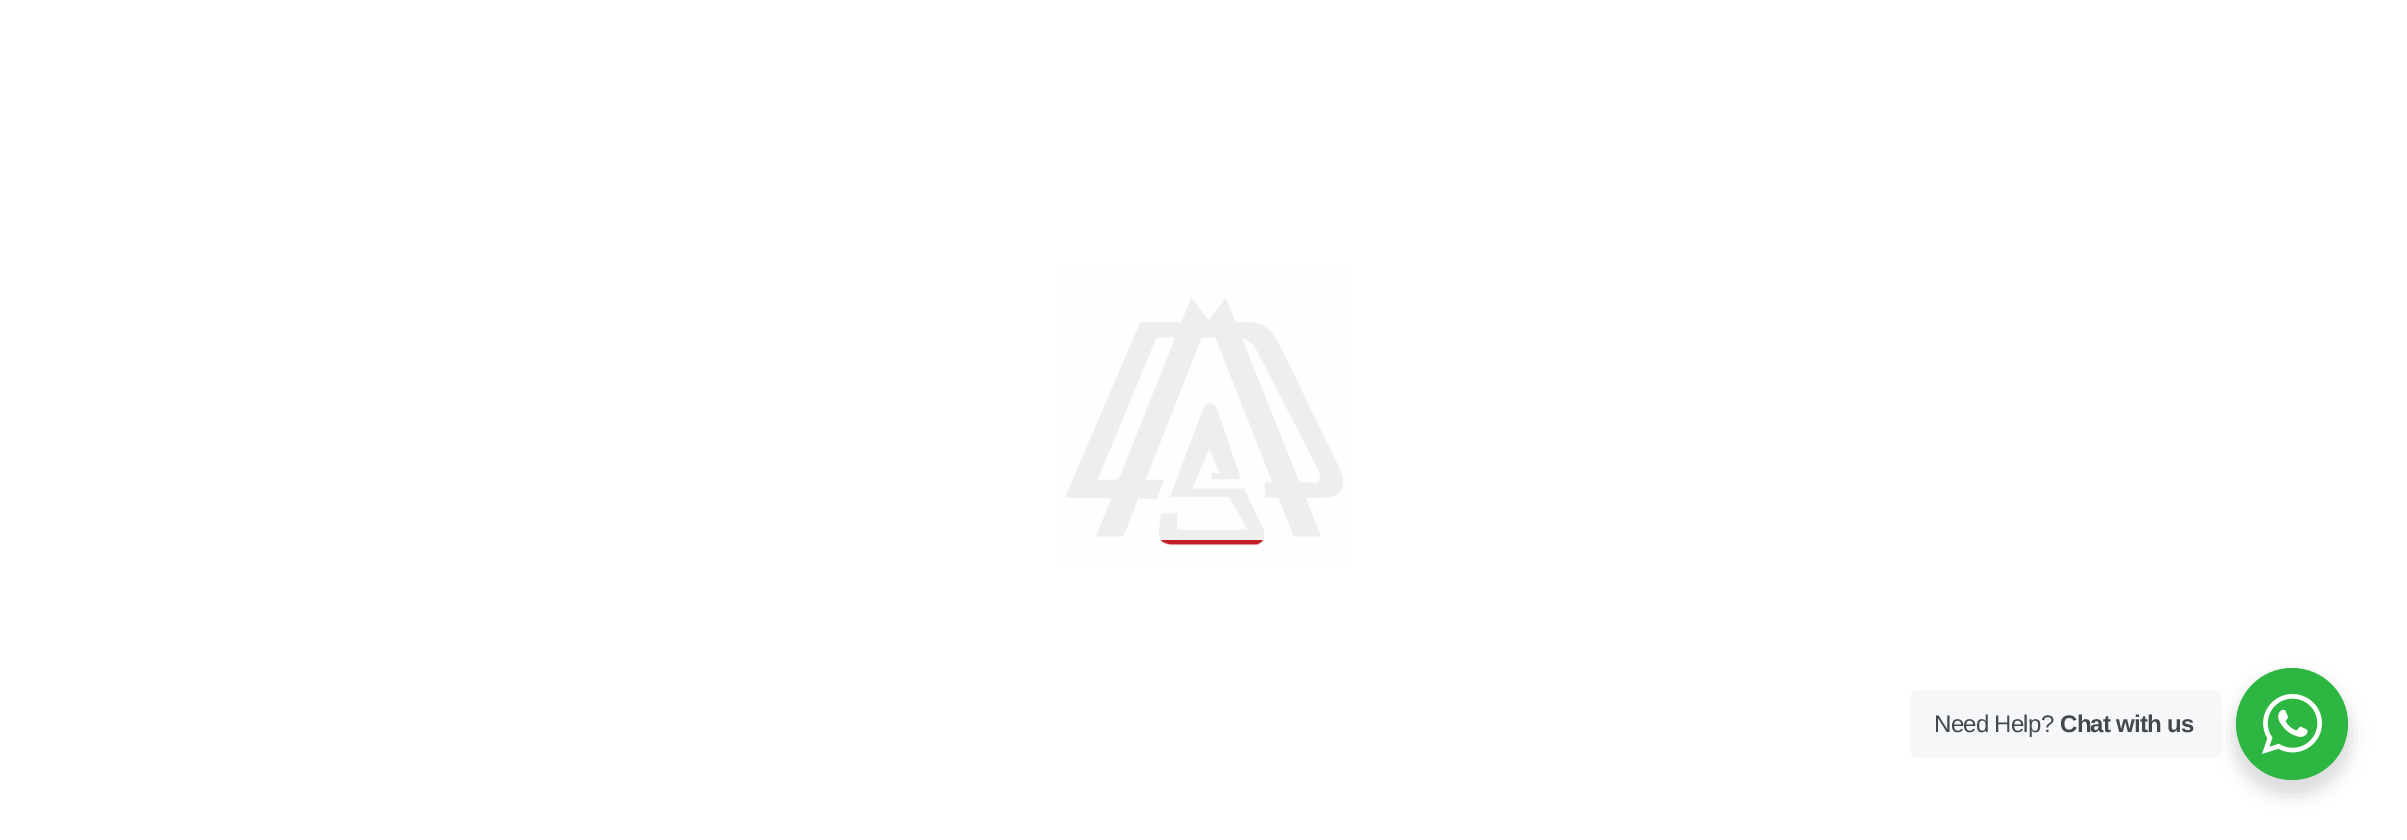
%!PS-Adobe-3.0
%%BoundingBox: 0 0 2407 840
%%LanguageLevel: 3
%%Pages: 1
%%EndComments
%%BeginProlog
/setink { dup -16 bitshift 255 div exch dup -8 bitshift 255 and 255 div exch 255 and 255 div setrgbcolor } def
/usefont { [ exch dup neg 0 0 3 -1 roll 0 0 ] selectfont } def
/setalpha { dup .setfillconstantalpha .setstrokeconstantalpha } def
/disc { newpath 0 360 arc closepath } def
/rrect { 5 dict begin { /r /h /w /y /x } { exch def } forall
  x r add y moveto x w add y 2 copy h add r arct x w add y h add x 1 index r arct
  x y h add x y r arct x y 2 copy exch w add exch r arct closepath end } def
/softshadow { 12 dict begin { /a /b /q /h /w /y /x } { exch def } forall gsave /was 0 def
  9 -2 -9 { dup b mul 4 div /e exch def 1 sub .425 mul 2.718 exch exp 1 add a .99 .min exch div /now exch def
    1 1 now sub 1 was sub div sub setalpha /was now def
    w h .min e 2 mul add 0 gt { x e sub y e sub w e 2 mul add h e 2 mul add
      q e add b .6 mul add w h .min 2 div e add .min 0 .max rrect fill } if } for grestore end } def
/drawimage { 5 dict begin { /h /w /y /x /name } { exch def } forall
  gsave x y translate w h scale
  w h 8 [w 0 0 h 0 0] name (r) file false 3 colorimage grestore end } def
%%EndProlog
%%BeginSetup
<< /PageSize [2407 840] /PageUsesTransparency true >> setpagedevice
%%EndSetup
%%Page: 1 1
0 .pushpdf14devicefilter
0 840 translate 1 -1 scale
4 setmiterlimit
16#FFFFFF setink
0 0 2407 840 rectfill
16#EEEEEC setink
1064 296 280 244 rectfill
16#C32026 setink
1160 540 104 6 rectfill
(img1.raw) 1056 270 296 298 drawimage
16#000000 setink
2232 676 120 120 60 8 0.14 softshadow
16#F5F7F9 setink
1910 690 312 68 8 rrect fill
/LiberationSans-Regular 24 usefont
16#43474E setink
1934 732 moveto -0.75 0 (Need Help?) ashow
/LiberationSans-Bold 24 usefont
2060 732 moveto -0.75 0 (Chat with us) ashow
16#2DB742 setink
2292 724 56 disc fill
(img2.raw) 2262 694 60 60 drawimage
.poppdf14devicefilter showpage
%%EOF
